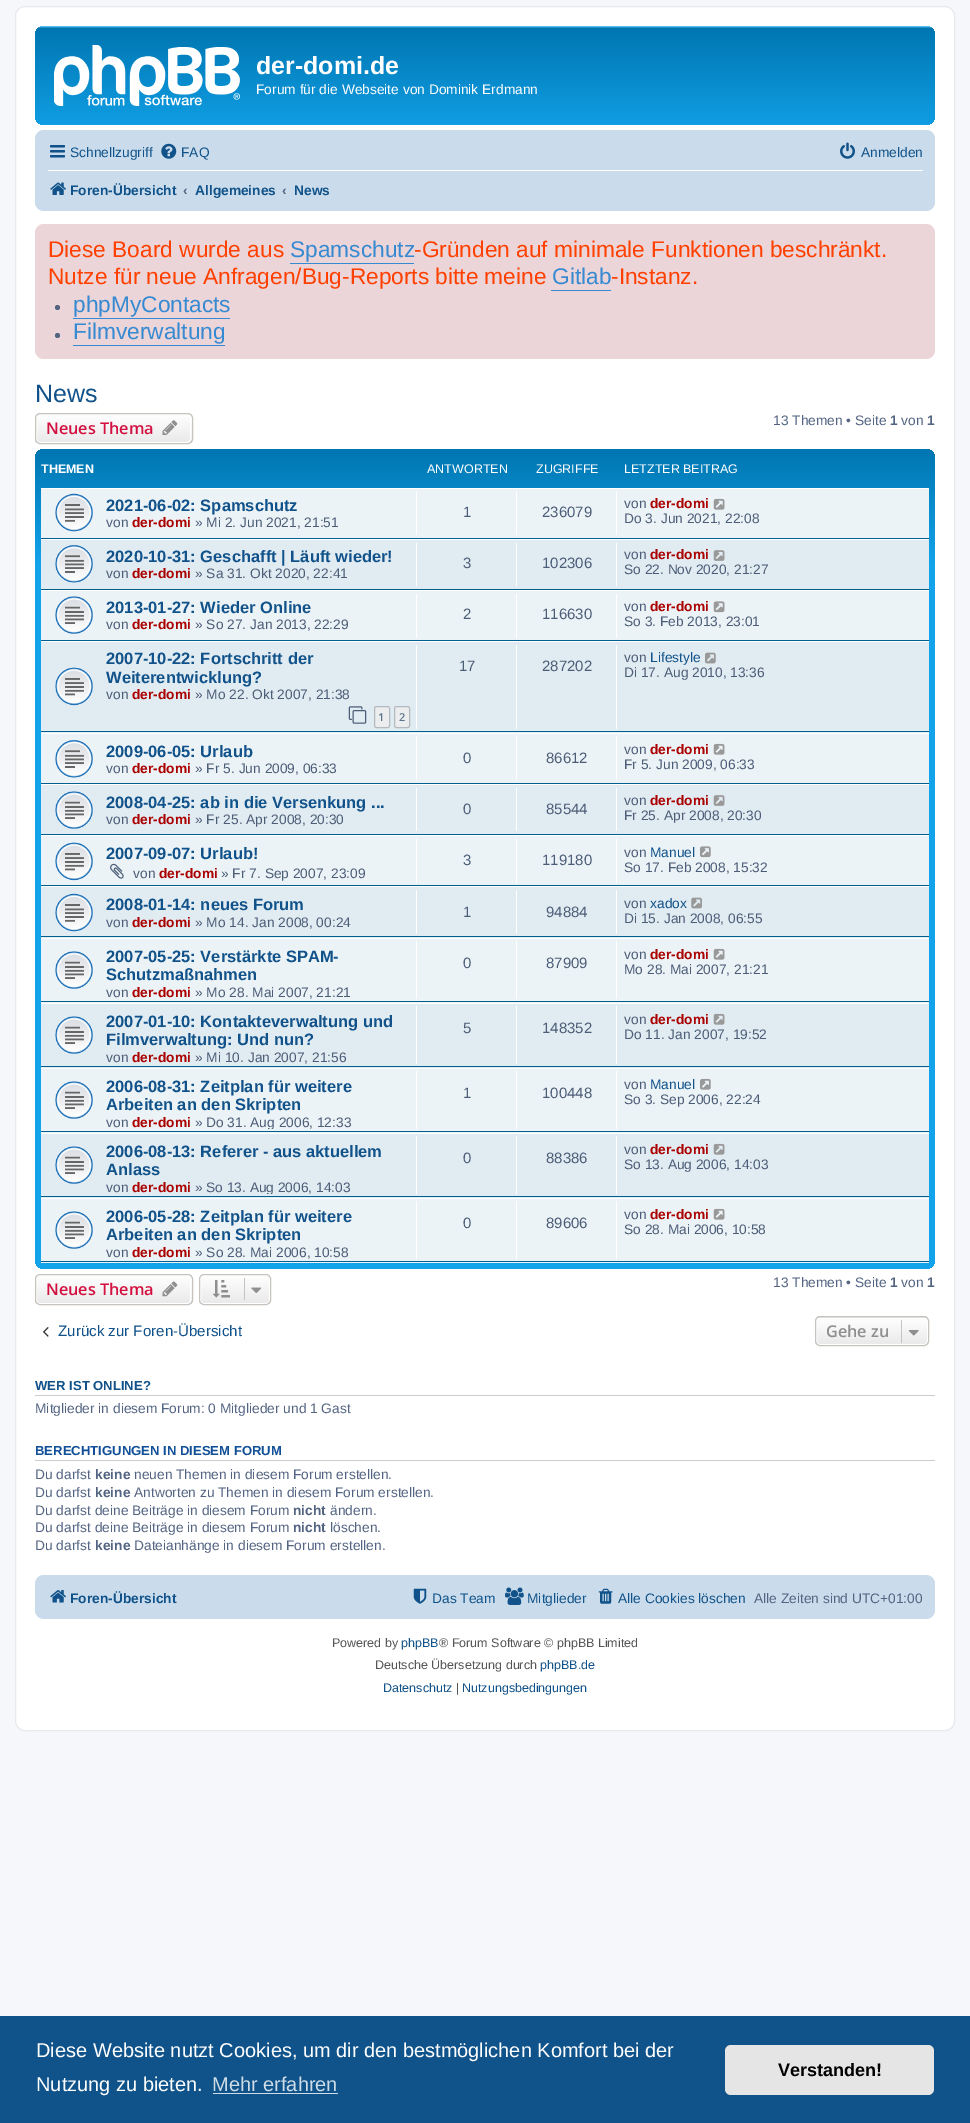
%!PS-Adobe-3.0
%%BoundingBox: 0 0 970 2123
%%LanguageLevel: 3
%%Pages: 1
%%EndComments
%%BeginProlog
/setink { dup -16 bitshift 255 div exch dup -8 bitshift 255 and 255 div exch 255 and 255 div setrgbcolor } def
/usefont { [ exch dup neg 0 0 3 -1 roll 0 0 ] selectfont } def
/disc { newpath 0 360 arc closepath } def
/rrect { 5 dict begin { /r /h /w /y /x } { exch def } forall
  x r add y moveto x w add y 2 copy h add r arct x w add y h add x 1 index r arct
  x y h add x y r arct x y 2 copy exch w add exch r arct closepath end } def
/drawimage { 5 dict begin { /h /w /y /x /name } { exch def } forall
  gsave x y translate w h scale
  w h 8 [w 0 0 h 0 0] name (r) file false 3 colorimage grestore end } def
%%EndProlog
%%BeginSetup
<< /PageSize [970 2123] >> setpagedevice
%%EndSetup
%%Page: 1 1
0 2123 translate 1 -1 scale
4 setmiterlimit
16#F5F7FA setink
0 0 970 2123 rectfill
16#FFFFFF setink
15.5 6.5 939 1724 9.5 rrect gsave fill grestore
16#E6E9ED setink
stroke
gsave 35 26 900 99 9 rrect clip newpath
<< /ShadingType 2 /ColorSpace /DeviceRGB /Coords [485 26 485 141] /Extend [true true] /Function << /FunctionType 3 /Domain [0 1] /Functions [<< /FunctionType 2 /Domain [0 1] /C0 [0.416 0.808 1] /C1 [0 0.463 0.694] /N 1 >> << /FunctionType 2 /Domain [0 1] /C0 [0 0.463 0.694] /C1 [0.071 0.639 0.922] /N 1 >>] /Bounds [0.02] /Encode [0 1 0 1] >> >> shfill grestore
(img1.raw) 54 45 186 61 drawimage
/LiberationSans-Bold 25 usefont
16#FFFFFF setink
256 74 moveto (der-domi.de) show
/LiberationSans-Regular 13.75 usefont
256 94 moveto (Forum für die Webseite von Dominik Erdmann) show
16#CADCEB setink
35 130 900 81 9 rrect fill
(img2.raw) 50 145 15 13 drawimage
16#105289 setink
70 157 moveto (Schnellzugriff) show
(img3.raw) 161 143 16 16 drawimage
181 157 moveto (FAQ) show
(img4.raw) 840 142 15 17 drawimage
861 157 moveto (Anmelden) show
16#FFFFFF setink
48 170 875 1 rectfill
(img5.raw) 50 182 16 13 drawimage
/LiberationSans-Bold 13.75 usefont
16#105289 setink
70 195 moveto (Foren-Übersicht) show
16#536482 setink
183 195 moveto (‹) show
16#105289 setink
195 195 moveto (Allgemeines) show
16#536482 setink
282 195 moveto (‹) show
16#105289 setink
294 195 moveto (News) show
16#ECD5D8 setink
35 224 900 135 9 rrect fill
/LiberationSans-Regular 22.7 usefont
16#FF4000 setink
48 257 moveto (Diese Board wurde aus) show
16#368AD2 setink
290 263 124 1 rectfill
290 257 moveto (Spamschutz) show
16#FF4000 setink
414 257 moveto (-Gründen auf minimale Funktionen beschränkt.) show
48 284 moveto (Nutze für neue Anfragen/Bug-Reports bitte meine) show
16#368AD2 setink
551 290 60 1 rectfill
552 284 moveto (Gitlab) show
16#FF4000 setink
611 284 moveto (-Instanz.) show
16#536482 setink
57.5 307.5 2.5 disc fill
16#368AD2 setink
73 318 157 1 rectfill
73 312 moveto (phpMyContacts) show
16#536482 setink
57.5 335.5 2.5 disc fill
16#368AD2 setink
73 345 152 1 rectfill
73 339 moveto (Filmverwaltung) show
/LiberationSans-Regular 25 usefont
16#105289 setink
35 402 moveto (News) show
gsave
35 413 158 31 5 rrect clip newpath
gsave 35 414 moveto 193 414 lineto 193 443 lineto 35 443 lineto closepath clip newpath
<< /ShadingType 2 /ColorSpace /DeviceRGB /Coords [114 414 114 443] /Extend [true true] /Function << /FunctionType 2 /Domain [0 1] /C0 [1 1 1] /C1 [0.914 0.914 0.914] /N 1 >> >> shfill grestore
grestore
16#FFFFFF setink
36.5 414.5 154 28 3.5 rrect stroke
16#C7C3BF setink
35.5 413.5 157 30 4.5 rrect stroke
/OpenSans-SemiBold 16.25 usefont
16#D31141 setink
46 434 moveto (Neues Thema) show
(img6.raw) 162 420 16 15 drawimage
/LiberationSans-Regular 13.75 usefont
16#536482 setink
773 425 moveto (13 Themen • Seite) show
/LiberationSans-Bold 13.75 usefont
890 425 moveto (1) show
/LiberationSans-Regular 13.75 usefont
901 425 moveto (von) show
/LiberationSans-Bold 13.75 usefont
927 425 moveto (1) show
gsave 35 449 900 820 9 rrect clip newpath
<< /ShadingType 2 /ColorSpace /DeviceRGB /Coords [485 449 485 1269] /Extend [true true] /Function << /FunctionType 3 /Domain [0 1] /Functions [<< /FunctionType 2 /Domain [0 1] /C0 [0 0.463 0.694] /C1 [0.071 0.639 0.922] /N 1 >> << /FunctionType 2 /Domain [0 1] /C0 [0.071 0.639 0.922] /C1 [0.071 0.639 0.922] /N 1 >>] /Bounds [0.14] /Encode [0 1 0 1] >> >> shfill grestore
/LiberationSans-Bold 12.5 usefont
16#FFFFFF setink
41 473 moveto (THEMEN) show
/LiberationSans-Regular 12.5 usefont
[
    [(ANTWORTEN) 427 473]
    [(ZUGRIFFE) 536 473]
    [(LETZTER BEITRAG) 624 473]
] { aload pop moveto show } forall
[
    [41 489 888 49 16#ECF3F7]
    [41 488 888 1 16#FFFFFF]
    [41 538 888 1 16#00608F]
] { aload pop setink rectfill } forall
(img7.raw) 55 493 38 39 drawimage
/LiberationSans-Bold 16.5 usefont
16#105289 setink
106 511 moveto (2021-06-02: Spamschutz) show
/LiberationSans-Regular 13.75 usefont
16#4C5D77 setink
106 527 moveto (von) show
/LiberationSans-Bold 13.75 usefont
16#AA0000 setink
132 527 moveto (der-domi) show
/LiberationSans-Regular 13.75 usefont
16#4C5D77 setink
195 527 moveto (» Mi 2. Jun 2021, 21:51) show
16#FFFFFF setink
416 491 1 44 rectfill
/LiberationSans-Regular 15 usefont
16#4C5D77 setink
463 517 moveto (1) show
16#FFFFFF setink
516 491 1 44 rectfill
16#4C5D77 setink
542 517 moveto (236079) show
16#FFFFFF setink
616 491 1 44 rectfill
/LiberationSans-Regular 13.75 usefont
16#4C5D77 setink
624 508 moveto (von) show
/LiberationSans-Bold 13.75 usefont
16#AA0000 setink
650 508 moveto (der-domi) show
(img8.raw) 713 498 12 12 drawimage
/LiberationSans-Regular 13.75 usefont
16#4C5D77 setink
624 523 moveto (Do 3. Jun 2021, 22:08) show
[
    [41 540 888 49 16#E1EBF2]
    [41 539 888 1 16#FFFFFF]
    [41 589 888 1 16#00608F]
] { aload pop setink rectfill } forall
(img9.raw) 55 544 38 39 drawimage
/LiberationSans-Bold 16.5 usefont
16#105289 setink
106 562 moveto (2020-10-31: Geschafft | Läuft wieder!) show
/LiberationSans-Regular 13.75 usefont
16#4C5D77 setink
106 578 moveto (von) show
/LiberationSans-Bold 13.75 usefont
16#AA0000 setink
132 578 moveto (der-domi) show
/LiberationSans-Regular 13.75 usefont
16#4C5D77 setink
195 578 moveto (» Sa 31. Okt 2020, 22:41) show
16#FFFFFF setink
416 543 1 43 rectfill
/LiberationSans-Regular 15 usefont
16#4C5D77 setink
463 568 moveto (3) show
16#FFFFFF setink
516 543 1 43 rectfill
16#4C5D77 setink
542 568 moveto (102306) show
16#FFFFFF setink
616 543 1 43 rectfill
/LiberationSans-Regular 13.75 usefont
16#4C5D77 setink
624 559 moveto (von) show
/LiberationSans-Bold 13.75 usefont
16#AA0000 setink
650 559 moveto (der-domi) show
(img10.raw) 713 550 12 11 drawimage
/LiberationSans-Regular 13.75 usefont
16#4C5D77 setink
624 574 moveto (So 22. Nov 2020, 21:27) show
[
    [41 591 888 49 16#ECF3F7]
    [41 590 888 1 16#FFFFFF]
    [41 640 888 1 16#00608F]
] { aload pop setink rectfill } forall
(img11.raw) 55 596 38 38 drawimage
/LiberationSans-Bold 16.5 usefont
16#105289 setink
106 613 moveto (2013-01-27: Wieder Online) show
/LiberationSans-Regular 13.75 usefont
16#4C5D77 setink
106 629 moveto (von) show
/LiberationSans-Bold 13.75 usefont
16#AA0000 setink
132 629 moveto (der-domi) show
/LiberationSans-Regular 13.75 usefont
16#4C5D77 setink
195 629 moveto (» So 27. Jan 2013, 22:29) show
16#FFFFFF setink
416 594 1 44 rectfill
/LiberationSans-Regular 15 usefont
16#4C5D77 setink
463 619 moveto (2) show
16#FFFFFF setink
516 594 1 44 rectfill
16#4C5D77 setink
542 619 moveto (116630) show
16#FFFFFF setink
616 594 1 44 rectfill
/LiberationSans-Regular 13.75 usefont
16#4C5D77 setink
624 611 moveto (von) show
/LiberationSans-Bold 13.75 usefont
16#AA0000 setink
650 611 moveto (der-domi) show
(img12.raw) 713 601 12 12 drawimage
/LiberationSans-Regular 13.75 usefont
16#4C5D77 setink
624 626 moveto (So 3. Feb 2013, 23:01) show
[
    [41 642 888 91 16#E1EBF2]
    [41 641 888 1 16#FFFFFF]
    [41 731 888 1 16#00608F]
] { aload pop setink rectfill } forall
(img13.raw) 55 667 38 39 drawimage
/LiberationSans-Bold 16.5 usefont
16#105289 setink
106 664 moveto (2007-10-22: Fortschritt der) show
106 683 moveto (Weiterentwicklung?) show
/LiberationSans-Regular 13.75 usefont
16#4C5D77 setink
106 699 moveto (von) show
/LiberationSans-Bold 13.75 usefont
16#AA0000 setink
132 699 moveto (der-domi) show
/LiberationSans-Regular 13.75 usefont
16#4C5D77 setink
195 699 moveto (» Mo 22. Okt 2007, 21:38) show
(img14.raw) 348 706 19 18 drawimage
16#ECEDEE setink
374.5 706.5 15 21 2 rrect gsave fill grestore
16#B4BAC0 setink
stroke
/OpenSans-SemiBold 11 usefont
16#5C758C setink
378 721 moveto (1) show
16#ECEDEE setink
394.5 706.5 15 21 2 rrect gsave fill grestore
16#B4BAC0 setink
stroke
16#5C758C setink
399 721 moveto (2) show
16#FFFFFF setink
416 645 1 84 rectfill
/LiberationSans-Regular 15 usefont
16#4C5D77 setink
459 671 moveto (17) show
16#FFFFFF setink
516 645 1 84 rectfill
16#4C5D77 setink
542 671 moveto (287202) show
16#FFFFFF setink
616 645 1 84 rectfill
/LiberationSans-Regular 13.75 usefont
16#4C5D77 setink
624 662 moveto (von) show
16#105289 setink
650 662 moveto (Lifestyle) show
(img15.raw) 705 652 11 12 drawimage
16#4C5D77 setink
624 677 moveto (Di 17. Aug 2010, 13:36) show
[
    [41 734 888 49 16#ECF3F7]
    [41 733 888 1 16#FFFFFF]
    [41 783 888 1 16#00608F]
] { aload pop setink rectfill } forall
(img16.raw) 55 739 38 39 drawimage
/LiberationSans-Bold 16.5 usefont
16#105289 setink
106 757 moveto (2009-06-05: Urlaub) show
/LiberationSans-Regular 13.75 usefont
16#4C5D77 setink
106 773 moveto (von) show
/LiberationSans-Bold 13.75 usefont
16#AA0000 setink
132 773 moveto (der-domi) show
/LiberationSans-Regular 13.75 usefont
16#4C5D77 setink
195 773 moveto (» Fr 5. Jun 2009, 06:33) show
16#FFFFFF setink
416 736 1 44 rectfill
/LiberationSans-Regular 15 usefont
16#4C5D77 setink
463 763 moveto (0) show
16#FFFFFF setink
516 736 1 44 rectfill
16#4C5D77 setink
546 763 moveto (86612) show
16#FFFFFF setink
616 736 1 44 rectfill
/LiberationSans-Regular 13.75 usefont
16#4C5D77 setink
624 754 moveto (von) show
/LiberationSans-Bold 13.75 usefont
16#AA0000 setink
650 754 moveto (der-domi) show
(img8.raw) 713 743 12 12 drawimage
/LiberationSans-Regular 13.75 usefont
16#4C5D77 setink
624 769 moveto (Fr 5. Jun 2009, 06:33) show
[
    [41 785 888 49 16#E1EBF2]
    [41 784 888 1 16#FFFFFF]
    [41 834 888 1 16#00608F]
] { aload pop setink rectfill } forall
(img17.raw) 55 791 38 38 drawimage
/LiberationSans-Bold 16.5 usefont
16#105289 setink
106 808 moveto (2008-04-25: ab in die Versenkung ...) show
/LiberationSans-Regular 13.75 usefont
16#4C5D77 setink
106 824 moveto (von) show
/LiberationSans-Bold 13.75 usefont
16#AA0000 setink
132 824 moveto (der-domi) show
/LiberationSans-Regular 13.75 usefont
16#4C5D77 setink
195 824 moveto (» Fr 25. Apr 2008, 20:30) show
16#FFFFFF setink
416 788 1 43 rectfill
/LiberationSans-Regular 15 usefont
16#4C5D77 setink
463 814 moveto (0) show
16#FFFFFF setink
516 788 1 43 rectfill
16#4C5D77 setink
546 814 moveto (85544) show
16#FFFFFF setink
616 788 1 43 rectfill
/LiberationSans-Regular 13.75 usefont
16#4C5D77 setink
624 805 moveto (von) show
/LiberationSans-Bold 13.75 usefont
16#AA0000 setink
650 805 moveto (der-domi) show
(img10.raw) 713 795 12 11 drawimage
/LiberationSans-Regular 13.75 usefont
16#4C5D77 setink
624 820 moveto (Fr 25. Apr 2008, 20:30) show
[
    [41 836 888 49 16#ECF3F7]
    [41 835 888 1 16#FFFFFF]
    [41 885 888 1 16#00608F]
] { aload pop setink rectfill } forall
(img18.raw) 55 842 38 39 drawimage
/LiberationSans-Bold 16.5 usefont
16#105289 setink
106 859 moveto (2007-09-07: Urlaub!) show
(img19.raw) 110 863 14 16 drawimage
/LiberationSans-Regular 13.75 usefont
16#4C5D77 setink
133 878 moveto (von) show
/LiberationSans-Bold 13.75 usefont
16#AA0000 setink
159 878 moveto (der-domi) show
/LiberationSans-Regular 13.75 usefont
16#4C5D77 setink
221 878 moveto (» Fr 7. Sep 2007, 23:09) show
16#FFFFFF setink
416 839 1 44 rectfill
/LiberationSans-Regular 15 usefont
16#4C5D77 setink
463 865 moveto (3) show
16#FFFFFF setink
516 839 1 44 rectfill
16#4C5D77 setink
542 865 moveto (119180) show
16#FFFFFF setink
616 839 1 44 rectfill
/LiberationSans-Regular 13.75 usefont
16#4C5D77 setink
624 857 moveto (von) show
16#105289 setink
650 857 moveto (Manuel) show
(img20.raw) 700 846 11 12 drawimage
16#4C5D77 setink
624 872 moveto (So 17. Feb 2008, 15:32) show
[
    [41 887 888 51 16#E1EBF2]
    [41 886 888 1 16#FFFFFF]
    [41 936 888 1 16#00608F]
] { aload pop setink rectfill } forall
(img21.raw) 55 893 38 39 drawimage
/LiberationSans-Bold 16.5 usefont
16#105289 setink
106 910 moveto (2008-01-14: neues Forum) show
/LiberationSans-Regular 13.75 usefont
16#4C5D77 setink
106 927 moveto (von) show
/LiberationSans-Bold 13.75 usefont
16#AA0000 setink
132 927 moveto (der-domi) show
/LiberationSans-Regular 13.75 usefont
16#4C5D77 setink
195 927 moveto (» Mo 14. Jan 2008, 00:24) show
16#FFFFFF setink
416 890 1 44 rectfill
/LiberationSans-Regular 15 usefont
16#4C5D77 setink
463 917 moveto (1) show
16#FFFFFF setink
516 890 1 44 rectfill
16#4C5D77 setink
546 917 moveto (94884) show
16#FFFFFF setink
616 890 1 44 rectfill
/LiberationSans-Regular 13.75 usefont
16#4C5D77 setink
624 908 moveto (von) show
16#105289 setink
650 908 moveto (xadox) show
(img22.raw) 691 897 11 12 drawimage
16#4C5D77 setink
624 923 moveto (Di 15. Jan 2008, 06:55) show
[
    [41 939 888 64 16#ECF3F7]
    [41 938 888 1 16#FFFFFF]
    [41 1001 888 1 16#00608F]
] { aload pop setink rectfill } forall
(img11.raw) 55 951 38 38 drawimage
/LiberationSans-Bold 16.5 usefont
16#105289 setink
106 962 moveto (2007-05-25: Verstärkte SPAM-) show
106 980 moveto (Schutzmaßnahmen) show
/LiberationSans-Regular 13.75 usefont
16#4C5D77 setink
106 997 moveto (von) show
/LiberationSans-Bold 13.75 usefont
16#AA0000 setink
132 997 moveto (der-domi) show
/LiberationSans-Regular 13.75 usefont
16#4C5D77 setink
195 997 moveto (» Mo 28. Mai 2007, 21:21) show
16#FFFFFF setink
416 941 1 58 rectfill
/LiberationSans-Regular 15 usefont
16#4C5D77 setink
463 968 moveto (0) show
16#FFFFFF setink
516 941 1 58 rectfill
16#4C5D77 setink
546 968 moveto (87909) show
16#FFFFFF setink
616 941 1 58 rectfill
/LiberationSans-Regular 13.75 usefont
16#4C5D77 setink
624 959 moveto (von) show
/LiberationSans-Bold 13.75 usefont
16#AA0000 setink
650 959 moveto (der-domi) show
(img8.raw) 713 948 12 12 drawimage
/LiberationSans-Regular 13.75 usefont
16#4C5D77 setink
624 974 moveto (Mo 28. Mai 2007, 21:21) show
[
    [41 1004 888 64 16#E1EBF2]
    [41 1003 888 1 16#FFFFFF]
    [41 1066 888 1 16#00608F]
] { aload pop setink rectfill } forall
(img23.raw) 55 1016 38 38 drawimage
/LiberationSans-Bold 16.5 usefont
16#105289 setink
106 1027 moveto (2007-01-10: Kontakteverwaltung und) show
106 1045 moveto (Filmverwaltung: Und nun?) show
/LiberationSans-Regular 13.75 usefont
16#4C5D77 setink
106 1062 moveto (von) show
/LiberationSans-Bold 13.75 usefont
16#AA0000 setink
132 1062 moveto (der-domi) show
/LiberationSans-Regular 13.75 usefont
16#4C5D77 setink
195 1062 moveto (» Mi 10. Jan 2007, 21:56) show
16#FFFFFF setink
416 1006 1 58 rectfill
/LiberationSans-Regular 15 usefont
16#4C5D77 setink
463 1033 moveto (5) show
16#FFFFFF setink
516 1006 1 58 rectfill
16#4C5D77 setink
542 1033 moveto (148352) show
16#FFFFFF setink
616 1006 1 58 rectfill
/LiberationSans-Regular 13.75 usefont
16#4C5D77 setink
624 1024 moveto (von) show
/LiberationSans-Bold 13.75 usefont
16#AA0000 setink
650 1024 moveto (der-domi) show
(img24.raw) 713 1013 12 12 drawimage
/LiberationSans-Regular 13.75 usefont
16#4C5D77 setink
624 1039 moveto (Do 11. Jan 2007, 19:52) show
[
    [41 1069 888 64 16#ECF3F7]
    [41 1068 888 1 16#FFFFFF]
    [41 1131 888 1 16#00608F]
] { aload pop setink rectfill } forall
(img11.raw) 55 1081 38 38 drawimage
/LiberationSans-Bold 16.5 usefont
16#105289 setink
106 1092 moveto (2006-08-31: Zeitplan für weitere) show
106 1110 moveto (Arbeiten an den Skripten) show
/LiberationSans-Regular 13.75 usefont
16#4C5D77 setink
106 1127 moveto (von) show
/LiberationSans-Bold 13.75 usefont
16#AA0000 setink
132 1127 moveto (der-domi) show
/LiberationSans-Regular 13.75 usefont
16#4C5D77 setink
195 1127 moveto (») show
gsave
41 1071 888 58 rectclip
206 1127 moveto (Do 31. Aug 2006, 12:33) show
grestore
16#FFFFFF setink
416 1071 1 58 rectfill
/LiberationSans-Regular 15 usefont
16#4C5D77 setink
463 1098 moveto (1) show
16#FFFFFF setink
516 1071 1 58 rectfill
16#4C5D77 setink
542 1098 moveto (100448) show
16#FFFFFF setink
616 1071 1 58 rectfill
/LiberationSans-Regular 13.75 usefont
16#4C5D77 setink
624 1089 moveto (von) show
16#105289 setink
650 1089 moveto (Manuel) show
(img25.raw) 700 1078 11 12 drawimage
16#4C5D77 setink
624 1104 moveto (So 3. Sep 2006, 22:24) show
[
    [41 1134 888 64 16#E1EBF2]
    [41 1133 888 1 16#FFFFFF]
    [41 1196 888 1 16#00608F]
] { aload pop setink rectfill } forall
(img26.raw) 55 1146 38 38 drawimage
/LiberationSans-Bold 16.5 usefont
16#105289 setink
106 1157 moveto (2006-08-13: Referer - aus aktuellem) show
106 1175 moveto (Anlass) show
/LiberationSans-Regular 13.75 usefont
16#4C5D77 setink
106 1192 moveto (von) show
/LiberationSans-Bold 13.75 usefont
16#AA0000 setink
132 1192 moveto (der-domi) show
/LiberationSans-Regular 13.75 usefont
16#4C5D77 setink
195 1192 moveto (») show
gsave
41 1136 888 58 rectclip
206 1192 moveto (So 13. Aug 2006, 14:03) show
grestore
16#FFFFFF setink
416 1136 1 58 rectfill
/LiberationSans-Regular 15 usefont
16#4C5D77 setink
463 1163 moveto (0) show
16#FFFFFF setink
516 1136 1 58 rectfill
16#4C5D77 setink
546 1163 moveto (88386) show
16#FFFFFF setink
616 1136 1 58 rectfill
/LiberationSans-Regular 13.75 usefont
16#4C5D77 setink
624 1154 moveto (von) show
/LiberationSans-Bold 13.75 usefont
16#AA0000 setink
650 1154 moveto (der-domi) show
(img24.raw) 713 1143 12 12 drawimage
/LiberationSans-Regular 13.75 usefont
16#4C5D77 setink
624 1169 moveto (So 13. Aug 2006, 14:03) show
[
    [41 1199 888 64 16#ECF3F7]
    [41 1198 888 1 16#FFFFFF]
    [41 1261 888 1 16#00608F]
] { aload pop setink rectfill } forall
(img11.raw) 55 1211 38 38 drawimage
/LiberationSans-Bold 16.5 usefont
16#105289 setink
106 1222 moveto (2006-05-28: Zeitplan für weitere) show
106 1240 moveto (Arbeiten an den Skripten) show
/LiberationSans-Regular 13.75 usefont
16#4C5D77 setink
106 1257 moveto (von) show
/LiberationSans-Bold 13.75 usefont
16#AA0000 setink
132 1257 moveto (der-domi) show
/LiberationSans-Regular 13.75 usefont
16#4C5D77 setink
195 1257 moveto (» So 28. Mai 2006, 10:58) show
16#FFFFFF setink
416 1201 1 58 rectfill
/LiberationSans-Regular 15 usefont
16#4C5D77 setink
463 1228 moveto (0) show
16#FFFFFF setink
516 1201 1 58 rectfill
16#4C5D77 setink
546 1228 moveto (89606) show
16#FFFFFF setink
616 1201 1 58 rectfill
/LiberationSans-Regular 13.75 usefont
16#4C5D77 setink
624 1219 moveto (von) show
/LiberationSans-Bold 13.75 usefont
16#AA0000 setink
650 1219 moveto (der-domi) show
(img8.raw) 713 1208 12 12 drawimage
/LiberationSans-Regular 13.75 usefont
16#4C5D77 setink
624 1234 moveto (So 28. Mai 2006, 10:58) show
gsave
35 1274 158 31 5 rrect clip newpath
gsave 35 1275 moveto 193 1275 lineto 193 1304 lineto 35 1304 lineto closepath clip newpath
<< /ShadingType 2 /ColorSpace /DeviceRGB /Coords [114 1275 114 1304] /Extend [true true] /Function << /FunctionType 2 /Domain [0 1] /C0 [1 1 1] /C1 [0.914 0.914 0.914] /N 1 >> >> shfill grestore
grestore
16#FFFFFF setink
36.5 1275.5 154 28 3.5 rrect stroke
16#C7C3BF setink
35.5 1274.5 157 30 4.5 rrect stroke
/OpenSans-SemiBold 16.25 usefont
16#D31141 setink
46 1295 moveto (Neues Thema) show
(img27.raw) 162 1281 16 16 drawimage
gsave
199 1274 72 31 5 rrect clip newpath
gsave 199 1275 moveto 271 1275 lineto 271 1304 lineto 199 1304 lineto closepath clip newpath
<< /ShadingType 2 /ColorSpace /DeviceRGB /Coords [235 1275 235 1304] /Extend [true true] /Function << /FunctionType 2 /Domain [0 1] /C0 [1 1 1] /C1 [0.914 0.914 0.914] /N 1 >> >> shfill grestore
grestore
16#FFFFFF setink
200.5 1275.5 69 28 3.5 rrect stroke
16#C7C3BF setink
199.5 1274.5 71 30 4.5 rrect stroke
(img28.raw) 212 1280 18 18 drawimage
244 1278 1 22 rectfill
(img29.raw) 251 1287 11 6 drawimage
/LiberationSans-Regular 13.75 usefont
16#536482 setink
773 1287 moveto (13 Themen • Seite) show
/LiberationSans-Bold 13.75 usefont
890 1287 moveto (1) show
/LiberationSans-Regular 13.75 usefont
901 1287 moveto (von) show
/LiberationSans-Bold 13.75 usefont
927 1287 moveto (1) show
(img30.raw) 43 1327 6 10 drawimage
/LiberationSans-Regular 15.1 usefont
16#105289 setink
58 1336 moveto (Zurück zur Foren-Übersicht) show
gsave
815 1316 114 30 5 rrect clip newpath
gsave 815 1316 moveto 929 1316 lineto 929 1318 lineto 815 1318 lineto closepath clip newpath
<< /ShadingType 2 /ColorSpace /DeviceRGB /Coords [872 1290 872 1318] /Extend [true true] /Function << /FunctionType 2 /Domain [0 1] /C0 [1 1 1] /C1 [0.914 0.914 0.914] /N 1 >> >> shfill grestore
gsave 815 1318 moveto 929 1318 lineto 929 1345 lineto 815 1345 lineto closepath clip newpath
<< /ShadingType 2 /ColorSpace /DeviceRGB /Coords [872 1318 872 1345] /Extend [true true] /Function << /FunctionType 2 /Domain [0 1] /C0 [1 1 1] /C1 [0.914 0.914 0.914] /N 1 >> >> shfill grestore
grestore
16#FFFFFF setink
816.5 1318.5 111 26 3.5 rrect stroke
16#C7C3BF setink
815.5 1316.5 113 29 4.5 rrect stroke
/OpenSans-SemiBold 16.25 usefont
16#8F8F8F setink
826 1337 moveto (Gehe zu) show
16#C7C3BF setink
901 1320 1 23 rectfill
(img31.raw) 908 1330 11 6 drawimage
16#CCCCCC setink
35 1395 900 1 rectfill
/LiberationSans-Bold 13.1 usefont
16#105289 setink
35 1390 moveto (WER IST ONLINE?) show
/LiberationSans-Regular 13.75 usefont
16#536482 setink
35 1413 moveto (Mitglieder in diesem Forum: 0 Mitglieder und 1 Gast) show
16#CCCCCC setink
35 1460 900 1 rectfill
/LiberationSans-Bold 13.1 usefont
16#115098 setink
35 1455 moveto (BERECHTIGUNGEN IN DIESEM FORUM) show
/LiberationSans-Regular 13.75 usefont
16#536482 setink
35 1479 moveto (Du darfst) show
/LiberationSans-Bold 13.75 usefont
95 1479 moveto (keine) show
/LiberationSans-Regular 13.75 usefont
134 1479 moveto (neuen Themen in diesem Forum erstellen.) show
35 1497 moveto (Du darfst) show
/LiberationSans-Bold 13.75 usefont
95 1497 moveto (keine) show
/LiberationSans-Regular 13.75 usefont
134 1497 moveto (Antworten zu Themen in diesem Forum erstellen.) show
35 1515 moveto (Du darfst deine Beiträge in diesem Forum) show
/LiberationSans-Bold 13.75 usefont
293 1515 moveto (nicht) show
/LiberationSans-Regular 13.75 usefont
330 1515 moveto (ändern.) show
35 1532 moveto (Du darfst deine Beiträge in diesem Forum) show
/LiberationSans-Bold 13.75 usefont
293 1532 moveto (nicht) show
/LiberationSans-Regular 13.75 usefont
330 1532 moveto (löschen.) show
35 1550 moveto (Du darfst) show
/LiberationSans-Bold 13.75 usefont
95 1550 moveto (keine) show
/LiberationSans-Regular 13.75 usefont
134 1550 moveto (Dateianhänge in diesem Forum erstellen.) show
16#CADCEB setink
35 1575 900 44 9 rrect fill
(img32.raw) 50 1590 16 13 drawimage
/LiberationSans-Bold 13.75 usefont
16#105289 setink
70 1603 moveto (Foren-Übersicht) show
(img33.raw) 413 1588 14 16 drawimage
/LiberationSans-Regular 13.75 usefont
432 1603 moveto (Das Team) show
(img34.raw) 505 1587 19 18 drawimage
527 1603 moveto (Mitglieder) show
(img35.raw) 598 1588 15 16 drawimage
618 1603 moveto (Alle Cookies löschen) show
16#536482 setink
754 1603 moveto (Alle Zeiten sind UTC+01:00) show
/LiberationSans-Regular 12.5 usefont
16#555555 setink
332 1647 moveto (Powered by) show
16#105289 setink
401 1647 moveto (phpBB) show
16#555555 setink
439 1647 moveto (® Forum Software © phpBB Limited) show
375 1669 moveto (Deutsche Übersetzung durch) show
16#105289 setink
540 1669 moveto (phpBB.de) show
383 1692 moveto (Datenschutz) show
16#555555 setink
456 1692 moveto (|) show
16#105289 setink
462 1692 moveto (Nutzungsbedingungen) show
16#0F538A setink
0 2016 970 107 rectfill
/LiberationSans-Regular 20 usefont
16#FFFFFF setink
36 2057 moveto (Diese Website nutzt Cookies, um dir den bestmöglichen Komfort bei der) show
36 2091 moveto (Nutzung zu bieten.) show
16#CFDDE8 setink
212 2091 moveto (Mehr erfahren) show
213 2093 125 1 rectfill
16#E5E5E5 setink
725 2045 209 50 6 rrect fill
/LiberationSans-Bold 18 usefont
16#000000 setink
778 2076 moveto (Verstanden!) show
showpage
%%EOF
